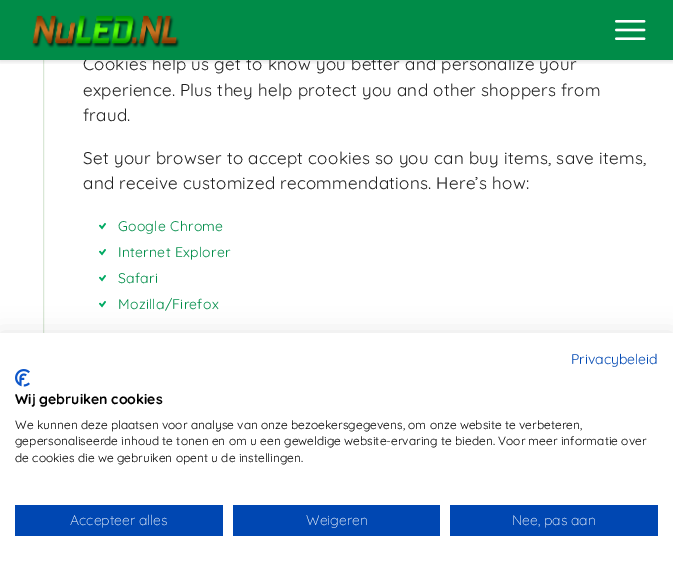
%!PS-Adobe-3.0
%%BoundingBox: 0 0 673 563
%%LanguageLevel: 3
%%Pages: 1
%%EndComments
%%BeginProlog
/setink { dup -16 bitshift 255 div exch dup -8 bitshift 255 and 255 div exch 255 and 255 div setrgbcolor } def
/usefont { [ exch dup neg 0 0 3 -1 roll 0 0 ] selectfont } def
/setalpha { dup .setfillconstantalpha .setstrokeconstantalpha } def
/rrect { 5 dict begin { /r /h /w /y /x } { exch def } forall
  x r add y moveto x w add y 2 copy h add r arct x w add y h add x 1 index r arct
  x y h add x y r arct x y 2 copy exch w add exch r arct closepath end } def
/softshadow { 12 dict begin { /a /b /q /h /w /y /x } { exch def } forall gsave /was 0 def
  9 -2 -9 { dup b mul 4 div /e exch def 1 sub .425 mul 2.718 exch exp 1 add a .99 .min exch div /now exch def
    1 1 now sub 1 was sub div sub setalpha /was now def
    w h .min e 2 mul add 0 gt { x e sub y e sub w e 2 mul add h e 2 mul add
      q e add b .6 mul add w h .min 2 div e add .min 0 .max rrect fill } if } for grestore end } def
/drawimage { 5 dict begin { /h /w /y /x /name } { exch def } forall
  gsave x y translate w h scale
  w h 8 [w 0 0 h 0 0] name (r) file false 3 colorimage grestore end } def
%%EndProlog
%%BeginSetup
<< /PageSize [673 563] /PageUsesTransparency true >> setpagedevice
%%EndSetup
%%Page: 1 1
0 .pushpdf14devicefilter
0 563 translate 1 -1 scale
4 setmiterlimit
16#FFFFFF setink
0 0 673 563 rectfill
(img3.raw) 99 223 7 7 drawimage
(img3.raw) 99 249 7 7 drawimage
(img3.raw) 99 275 7 7 drawimage
(img4.raw) 99 301 7 7 drawimage
16#D9E7D6 setink
43.5 -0.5 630 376 rectstroke
/Quicksand-Regular 17 usefont
16#212121 setink
83 70 moveto 0.28 0 (Cookies help us get to know you better and personalize your) ashow
16#008C48 setink
0 0 673 60 rectfill
gsave
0 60 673 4 rectclip
16#000000 setink
0 1 673 60 0 3 0.15 softshadow
grestore
(img1.raw) 32 15 148 33 drawimage
(img2.raw) 615 20 31 20 drawimage
16#212121 setink
83 96 moveto 0.28 0 (experience. Plus they help protect you and other shoppers from) ashow
83 121 moveto 0.28 0 (fraud.) ashow
83 164 moveto 0.28 0 (Set your browser to accept cookies so you can buy items, save items,) ashow
83 189 moveto 0.28 0 (and receive customized recommendations. Here’s how:) ashow
/Quicksand-Regular 14 usefont
16#008C48 setink
118 231 moveto 0.28 0 (Google Chrome) ashow
118 257 moveto 0.28 0 (Internet Explorer) ashow
118 283 moveto 0.28 0 (Safari) ashow
118 309 moveto 0.28 0 (Mozilla/Firefox) ashow
16#000000 setink
0 333 673 230 0 12 0.1 softshadow
16#FFFFFF setink
0 333 673 230 rectfill
16#0047B2 setink
571 364 moveto (Privacybeleid) show
(img5.raw) 15 369 15 18 drawimage
/Quicksand-Bold 14 usefont
16#000000 setink
15 404 moveto (Wij gebruiken cookies) show
/Quicksand-Regular 12 usefont
[
    [(We kunnen deze plaatsen voor analyse van onze bezoekersgegevens, om onze website te verbeteren,) 15 429]
    [(gepersonaliseerde inhoud te tonen en om u een geweldige website-ervaring te bieden. Voor meer informatie over) 15 445]
    [(de cookies die we gebruiken opent u de instellingen.) 15 462]
] { aload pop moveto show } forall
16#0047B2 setink
15 505 208 31 rectfill
/Quicksand-Light 14 usefont
16#FFFFFF setink
70 525 moveto (Accepteer alles) show
16#0047B2 setink
233 505 207 31 rectfill
16#FFFFFF setink
306 525 moveto (Weigeren) show
16#0047B2 setink
450 505 208 31 rectfill
16#FFFFFF setink
512 525 moveto (Nee, pas aan) show
.poppdf14devicefilter showpage
%%EOF
